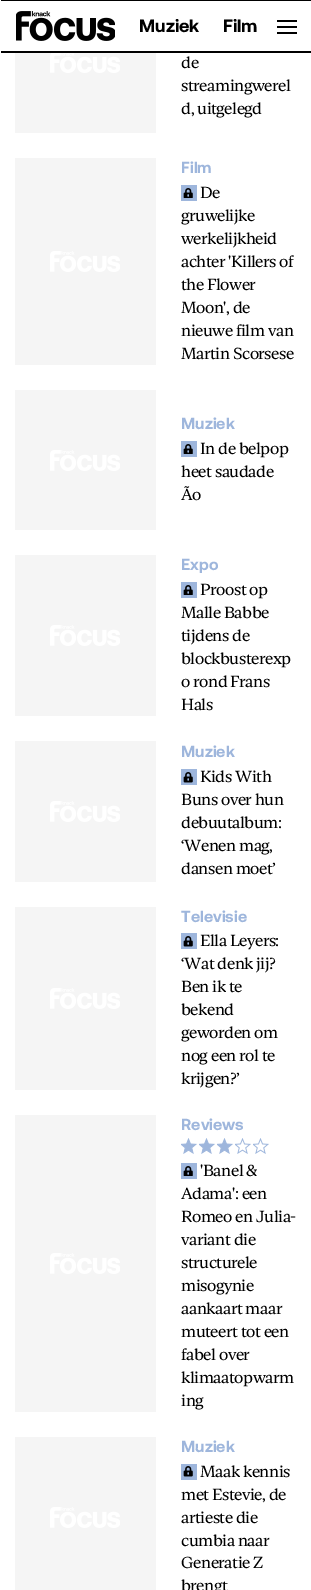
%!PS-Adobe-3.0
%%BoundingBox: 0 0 311 1590
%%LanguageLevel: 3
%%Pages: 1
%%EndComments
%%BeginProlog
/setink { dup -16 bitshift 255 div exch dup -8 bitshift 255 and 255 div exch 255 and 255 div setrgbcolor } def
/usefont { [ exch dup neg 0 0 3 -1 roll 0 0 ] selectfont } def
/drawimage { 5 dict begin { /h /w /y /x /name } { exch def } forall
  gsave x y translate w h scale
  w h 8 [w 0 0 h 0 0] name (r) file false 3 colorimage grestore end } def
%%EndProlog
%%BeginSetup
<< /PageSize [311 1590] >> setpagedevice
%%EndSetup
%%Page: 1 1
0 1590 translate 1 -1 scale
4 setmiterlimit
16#FFFFFF setink
0 0 311 1590 rectfill
16#000000 setink
1 0 310 1 rectfill
1 51 310 2 rectfill
(img1.raw) 16 11 99 30 drawimage
/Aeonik-Bold 18 usefont
139 32 moveto (Muziek) show
223 32 moveto (Film) show
[
    [277 20 20 2 16#000000]
    [277 26 20 2 16#000000]
    [277 32 20 2 16#000000]
    [15 53 141 80 16#F5F5F5]
] { aload pop setink rectfill } forall
(img2.raw) 50 53 70 20 drawimage
/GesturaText-Regular 16 usefont
16#000000 setink
181 68 moveto -0.5 0 (de) ashow
181 91 moveto -0.5 0 (streamingwerel) ashow
181 114 moveto -0.5 0 (d, uitgelegd) ashow
16#F5F5F5 setink
15 158 141 207 rectfill
(img3.raw) 50 251 70 21 drawimage
/Aeonik-Bold 16 usefont
16#9EB6DC setink
181 173 moveto (Film) show
181 185 16 16 rectfill
(img4.raw) 183 188 10 10 drawimage
/GesturaText-Regular 16 usefont
16#000000 setink
200 198 moveto -0.5 0 (De) ashow
181 221 moveto -0.5 0 (gruwelijke) ashow
181 244 moveto -0.5 0 (werkelijkheid) ashow
181 267 moveto -0.5 0 (achter 'Killers of) ashow
181 290 moveto -0.5 0 (the Flower) ashow
181 313 moveto -0.5 0 (Moon', de) ashow
181 336 moveto -0.5 0 (nieuwe film van) ashow
181 359 moveto -0.5 0 (Martin Scorsese) ashow
16#F5F5F5 setink
15 390 141 140 rectfill
(img3.raw) 50 450 70 21 drawimage
/Aeonik-Bold 16 usefont
16#9EB6DC setink
181 429 moveto (Muziek) show
181 441 16 16 rectfill
(img4.raw) 183 444 10 10 drawimage
/GesturaText-Regular 16 usefont
16#000000 setink
200 454 moveto -0.5 0 (In de belpop) ashow
181 477 moveto -0.5 0 (heet saudade) ashow
181 500 moveto -0.5 0 (Ão) ashow
16#F5F5F5 setink
15 555 141 161 rectfill
(img3.raw) 50 625 70 21 drawimage
gsave
181 555 37 18 rectclip
/Aeonik-Bold 16 usefont
16#9EB6DC setink
181 570 moveto (Expo) show
grestore
16#9EB6DC setink
181 582 16 16 rectfill
(img4.raw) 183 585 10 10 drawimage
16#000000 setink
200 595 moveto -0.5 0 (Proost op) ashow
181 618 moveto -0.5 0 (Malle Babbe) ashow
181 641 moveto -0.5 0 (tijdens de) ashow
181 664 moveto -0.5 0 (blockbusterexp) ashow
181 687 moveto -0.5 0 (o rond Frans) ashow
181 710 moveto -0.5 0 (Hals) ashow
16#F5F5F5 setink
15 741 141 141 rectfill
(img3.raw) 50 801 70 21 drawimage
/Aeonik-Bold 16 usefont
16#9EB6DC setink
181 757 moveto (Muziek) show
181 769 16 16 rectfill
(img5.raw) 183 772 10 11 drawimage
/GesturaText-Regular 16 usefont
16#000000 setink
200 782 moveto -0.5 0 (Kids With) ashow
181 805 moveto -0.5 0 (Buns over hun) ashow
181 828 moveto -0.5 0 (debuutalbum:) ashow
181 851 moveto -0.5 0 (‘Wenen mag,) ashow
181 874 moveto -0.5 0 (dansen moet’) ashow
16#F5F5F5 setink
15 907 141 183 rectfill
(img3.raw) 50 988 70 21 drawimage
/Aeonik-Bold 16 usefont
16#9EB6DC setink
181 922 moveto (Televisie) show
181 933 16 16 rectfill
(img5.raw) 183 936 10 11 drawimage
/GesturaText-Regular 16 usefont
16#000000 setink
200 946 moveto -0.5 0 (Ella Leyers:) ashow
181 969 moveto -0.5 0 (‘Wat denk jij?) ashow
181 992 moveto -0.5 0 (Ben ik te) ashow
181 1015 moveto -0.5 0 (bekend) ashow
181 1038 moveto -0.5 0 (geworden om) ashow
181 1061 moveto -0.5 0 (nog een rol te) ashow
181 1084 moveto -0.5 0 (krijgen?’) ashow
16#F5F5F5 setink
15 1115 141 297 rectfill
(img3.raw) 50 1253 70 21 drawimage
/Aeonik-Bold 16 usefont
16#9EB6DC setink
181 1130 moveto (Reviews) show
(img6.raw) 181 1138 16 16 drawimage
(img6.raw) 199 1138 16 16 drawimage
(img6.raw) 217 1138 16 16 drawimage
(img7.raw) 235 1138 16 16 drawimage
(img7.raw) 253 1138 16 16 drawimage
181 1163 16 16 rectfill
(img4.raw) 183 1166 10 10 drawimage
/GesturaText-Regular 16 usefont
16#000000 setink
200 1176 moveto -0.5 0 ('Banel &) ashow
181 1199 moveto -0.5 0 (Adama': een) ashow
181 1222 moveto -0.5 0 (Romeo en Julia-) ashow
181 1245 moveto -0.5 0 (variant die) ashow
181 1268 moveto -0.5 0 (structurele) ashow
181 1291 moveto -0.5 0 (misogynie) ashow
181 1314 moveto -0.5 0 (aankaart maar) ashow
181 1337 moveto -0.5 0 (muteert tot een) ashow
181 1360 moveto -0.5 0 (fabel over) ashow
181 1383 moveto -0.5 0 (klimaatopwarm) ashow
181 1406 moveto -0.5 0 (ing) ashow
16#F5F5F5 setink
15 1437 141 153 rectfill
(img3.raw) 50 1507 70 21 drawimage
/Aeonik-Bold 16 usefont
16#9EB6DC setink
181 1452 moveto (Muziek) show
181 1464 16 16 rectfill
(img5.raw) 183 1466 10 11 drawimage
/GesturaText-Regular 16 usefont
16#000000 setink
200 1477 moveto -0.5 0 (Maak kennis) ashow
181 1500 moveto -0.5 0 (met Estevie, de) ashow
181 1523 moveto -0.5 0 (artieste die) ashow
181 1546 moveto -0.5 0 (cumbia naar) ashow
181 1568 moveto -0.5 0 (Generatie Z) ashow
181 1591 moveto -0.5 0 (brengt) ashow
showpage
%%EOF
